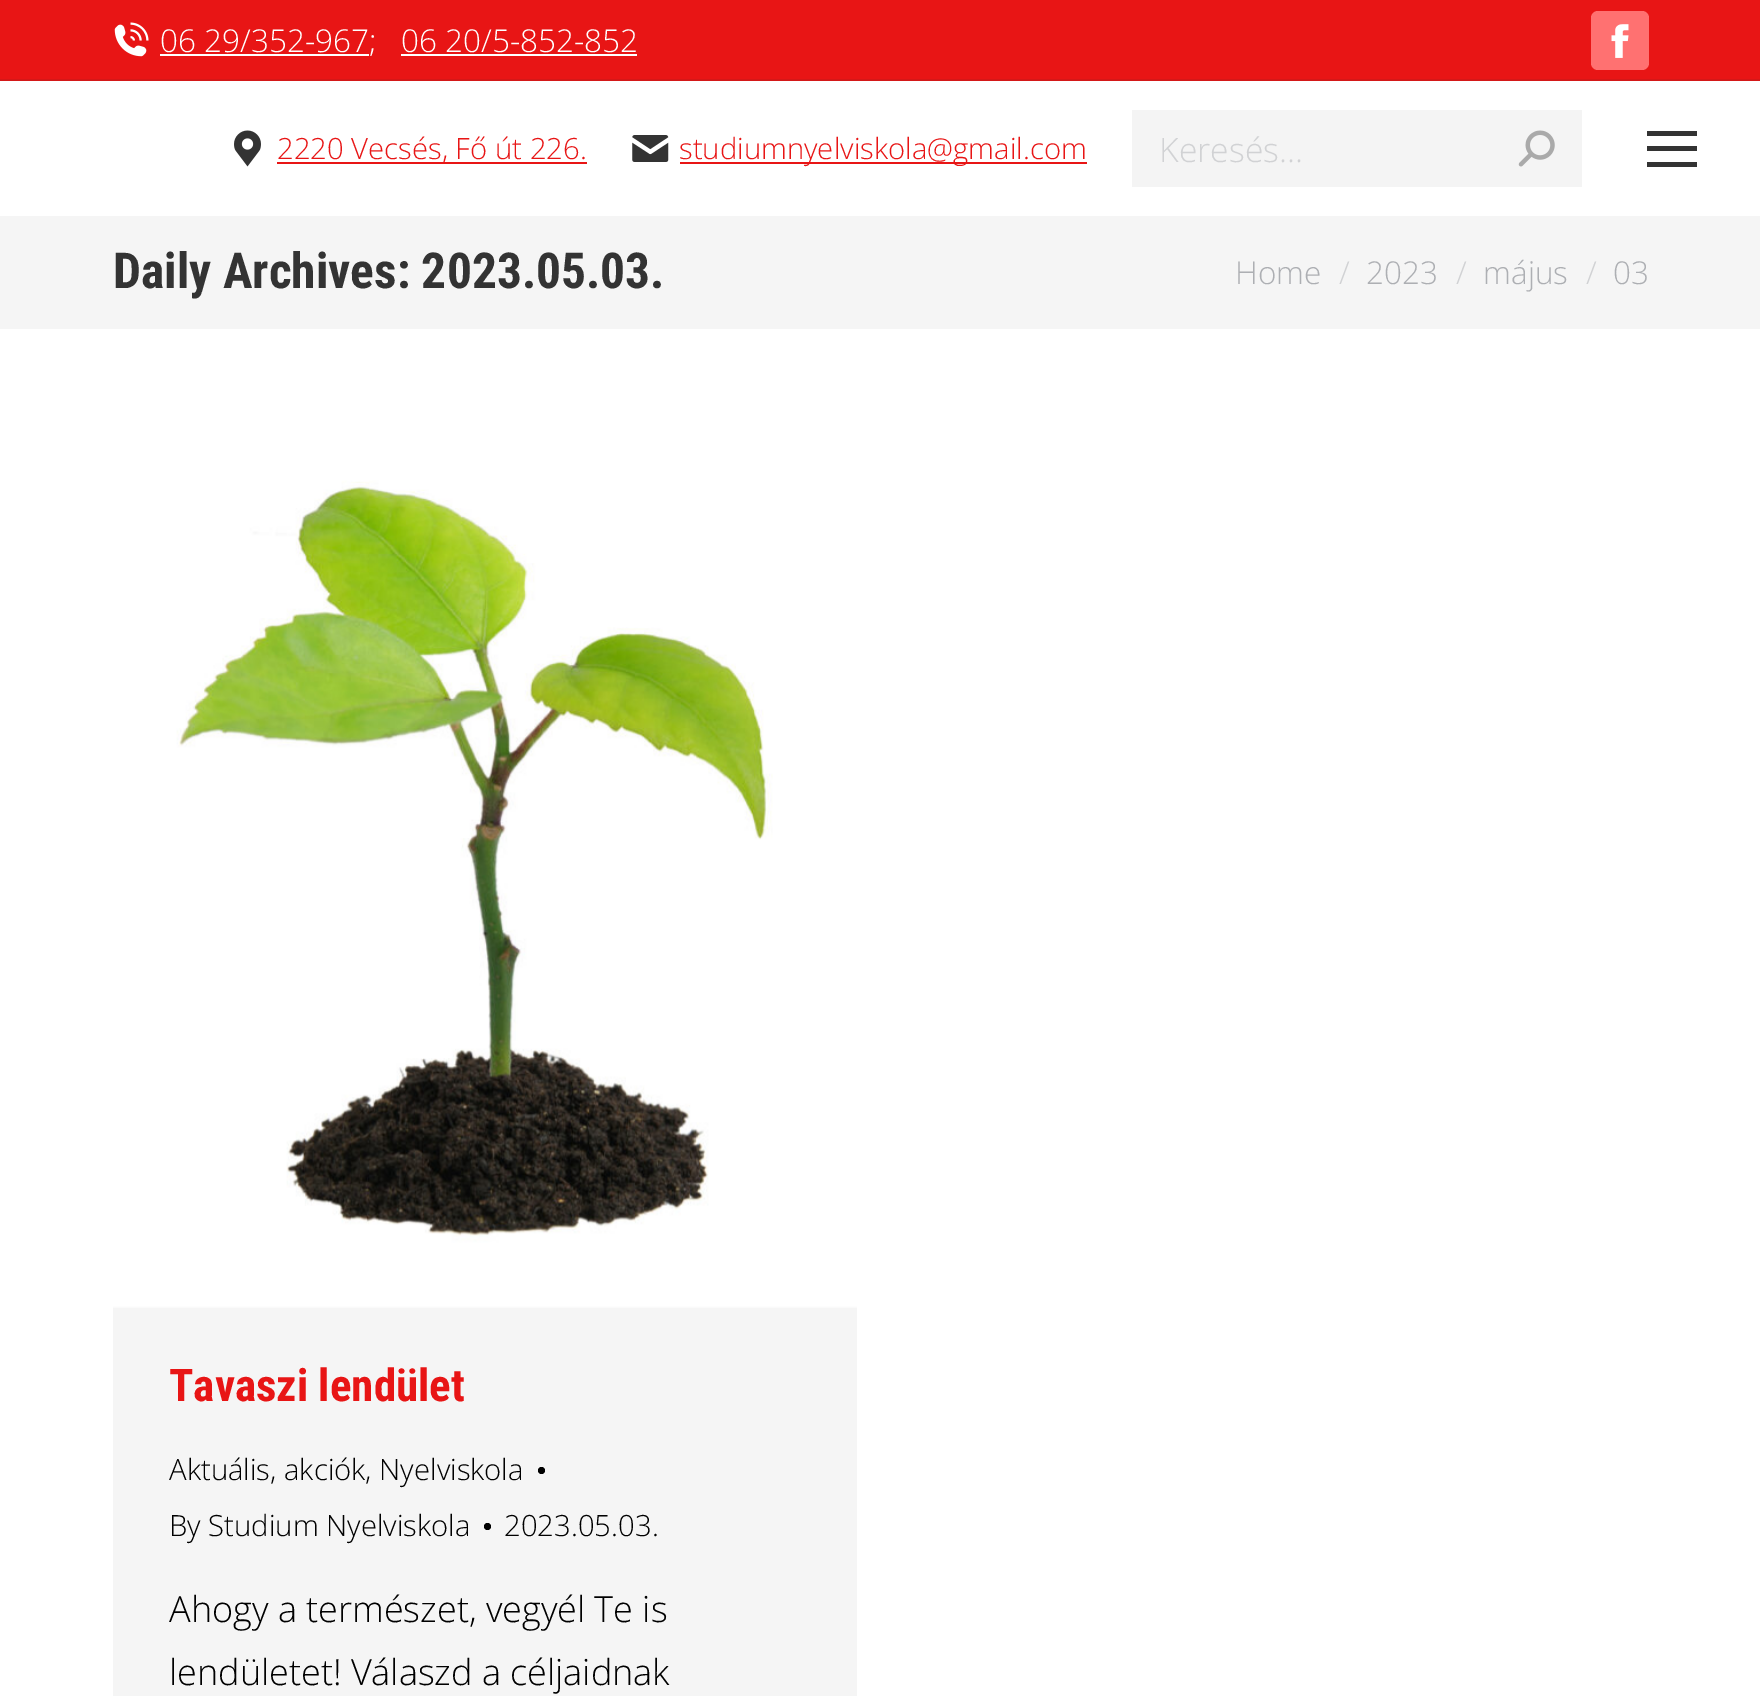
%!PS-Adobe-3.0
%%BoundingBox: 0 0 1760 1696
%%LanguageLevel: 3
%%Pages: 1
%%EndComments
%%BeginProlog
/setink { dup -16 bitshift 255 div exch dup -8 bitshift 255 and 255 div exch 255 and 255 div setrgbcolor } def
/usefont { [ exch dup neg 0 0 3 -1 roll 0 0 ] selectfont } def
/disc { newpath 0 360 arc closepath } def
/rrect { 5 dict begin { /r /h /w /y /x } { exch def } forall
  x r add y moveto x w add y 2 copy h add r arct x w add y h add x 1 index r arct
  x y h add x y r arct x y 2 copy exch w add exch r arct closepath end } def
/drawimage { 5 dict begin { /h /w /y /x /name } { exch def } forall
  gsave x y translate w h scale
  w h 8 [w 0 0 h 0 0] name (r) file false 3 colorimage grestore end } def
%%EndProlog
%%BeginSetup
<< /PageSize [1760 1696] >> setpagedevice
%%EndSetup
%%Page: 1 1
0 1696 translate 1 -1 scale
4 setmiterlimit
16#FFFFFF setink
0 0 1760 1696 rectfill
16#E81515 setink
0 0 1760 79 rectfill
(img1.raw) 114 22 35 35 drawimage
16#FFFFFF setink
160 54 209 2 rectfill
/OpenSans-Light 31.5 usefont
160 52 moveto (06 29/352-967;) show
401 52 moveto (06 20/5-852-852) show
401 54 236 2 rectfill
16#FF7171 setink
1591 11 58 59 7 rrect fill
(img2.raw) 1611 24 18 34 drawimage
16#D41818 setink
0 79 1760 2 rectfill
(img3.raw) 234 130 27 37 drawimage
16#E81515 setink
277 162 310 2 rectfill
/OpenSans-Light 29.25 usefont
277 159 moveto (2220 Vecsés, Fő út 226.) show
(img4.raw) 632 135 37 27 drawimage
680 162 407 2 rectfill
679 159 moveto (studiumnyelviskola@gmail.com) show
16#F4F4F4 setink
1132 110 450 77 rectfill
/OpenSans-Light 33.75 usefont
16#D1D2D4 setink
1159 162 moveto (Keresés...) show
(img5.raw) 1518 130 37 37 drawimage
[
    [1647 131 50 5 16#333333]
    [1647 146 50 5 16#333333]
    [1647 162 50 5 16#333333]
    [0 216 1760 113 16#F5F5F5]
] { aload pop setink rectfill } forall
/RobotoCondensed-Bold 49.5 usefont
16#333333 setink
113 288 moveto (Daily Archives: 2023.05.03.) show
/OpenSans-Light 31.5 usefont
16#ADAFB3 setink
1235 284 moveto (Home) show
16#D1D2D4 setink
1339 284 moveto (/) show
16#ADAFB3 setink
1366 284 moveto (2023) show
16#D1D2D4 setink
1456 284 moveto (/) show
16#ADAFB3 setink
1483 284 moveto (május) show
16#D1D2D4 setink
1586 284 moveto (/) show
16#ADAFB3 setink
1613 284 moveto (03) show
16#F5F5F5 setink
113 1306 744 390 rectfill
(img6.raw) 113 407 744 901 drawimage
/RobotoCondensed-Bold 45 usefont
16#E81515 setink
169 1401 moveto (Tavaszi lendület) show
/OpenSans-Light 29.25 usefont
16#000000 setink
169 1480 moveto (Aktuális, akciók, Nyelviskola) show
541.5 1470.5 3.5 disc fill
169 1536 moveto (By Studium Nyelviskola) show
487.5 1526.5 3.5 disc fill
504 1536 moveto (2023.05.03.) show
/OpenSans-Light 36 usefont
169 1622 moveto (Ahogy a természet, vegyél Te is) show
169 1685 moveto (lendületet! Válaszd a céljaidnak) show
showpage
%%EOF
